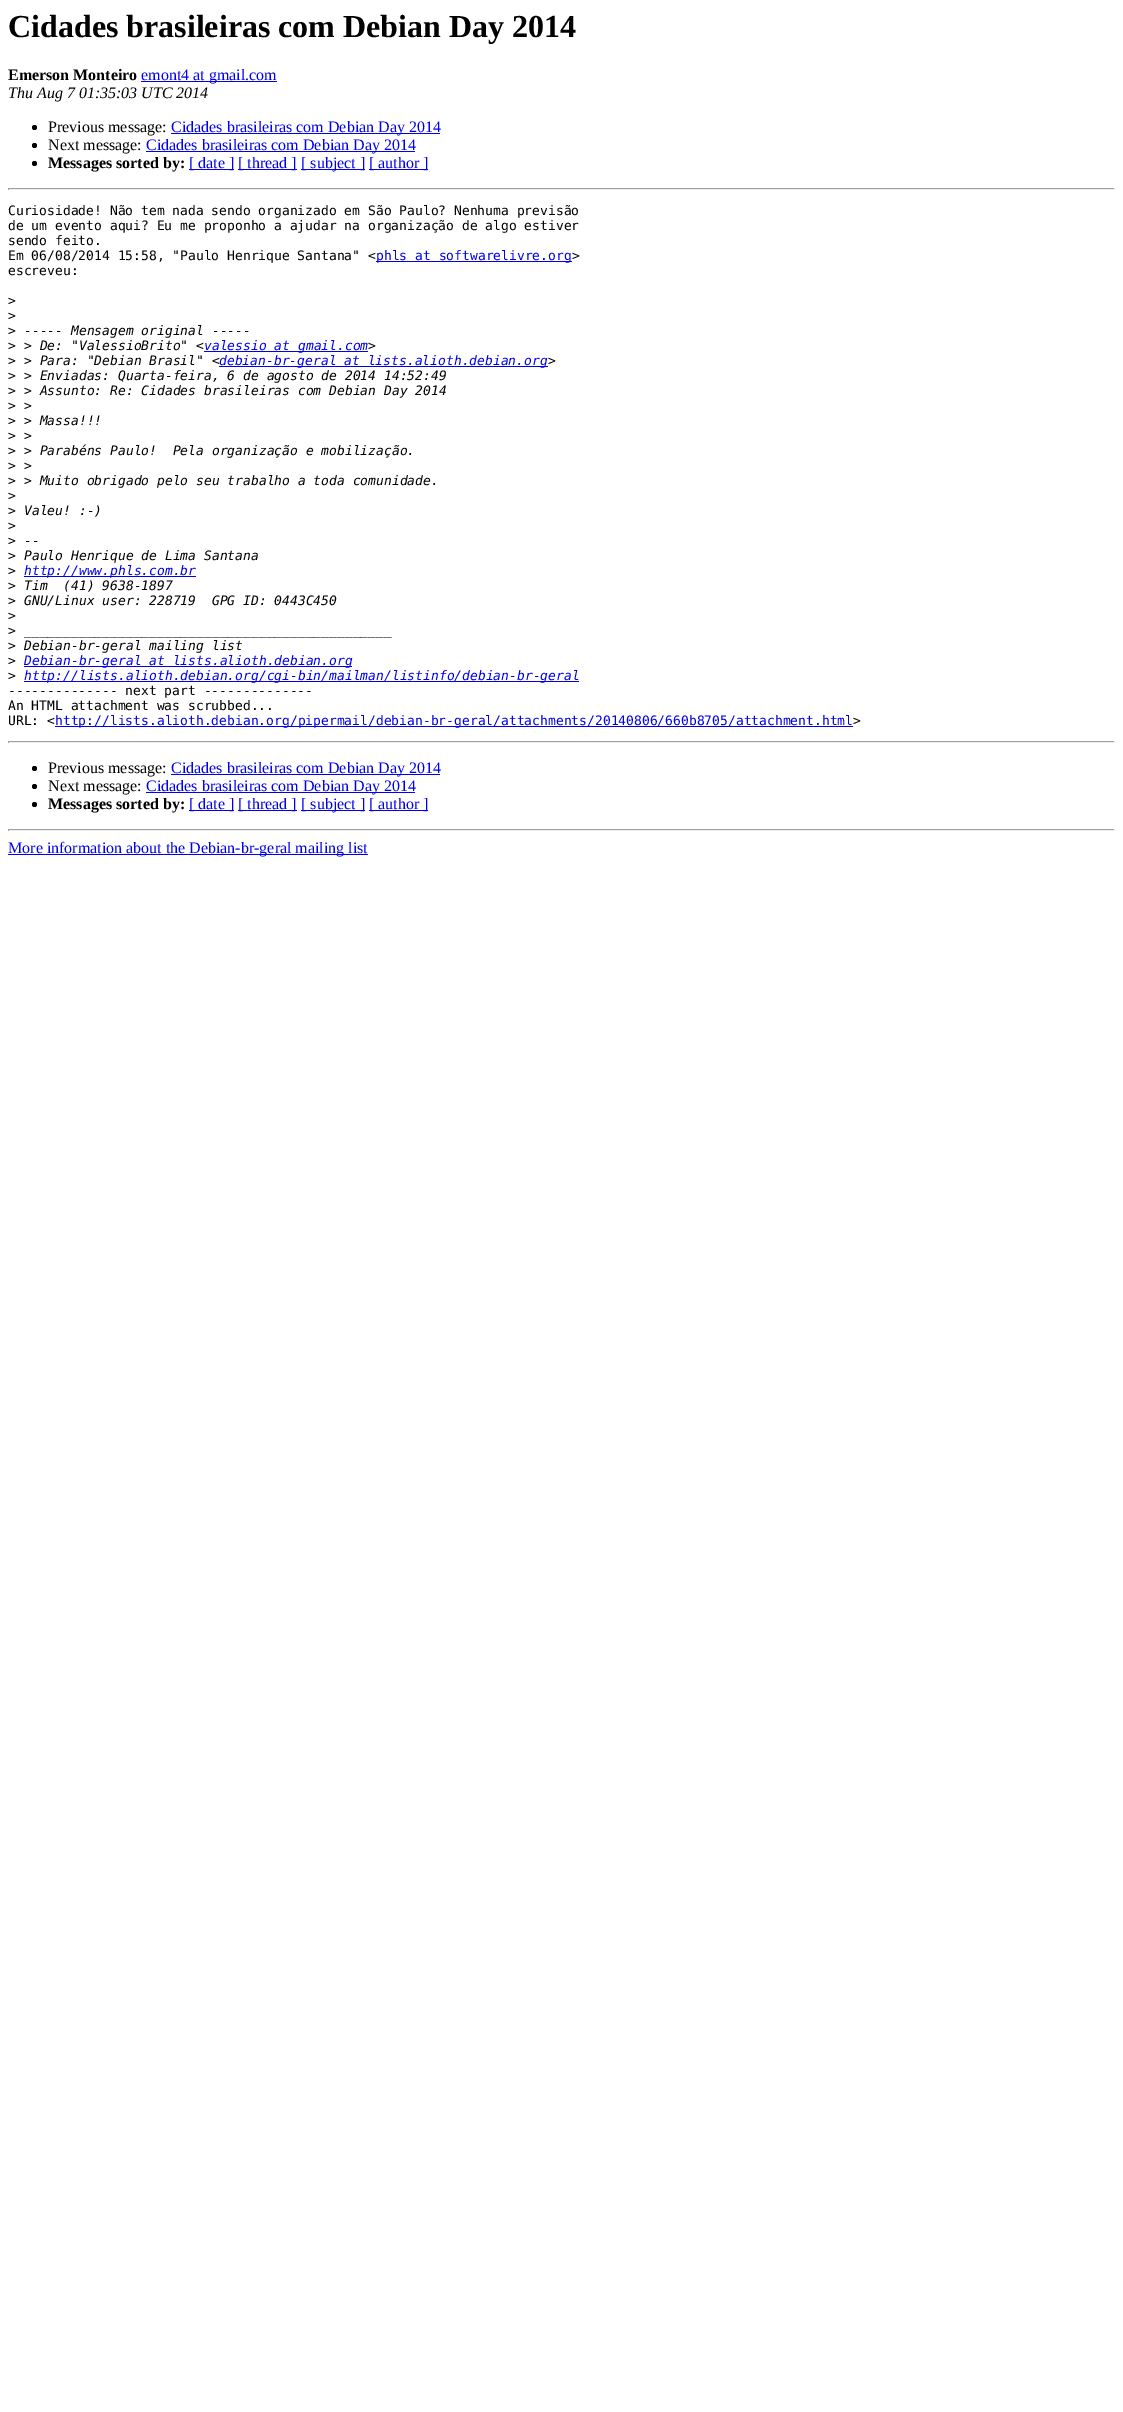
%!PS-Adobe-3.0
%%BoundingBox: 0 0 1123 2412
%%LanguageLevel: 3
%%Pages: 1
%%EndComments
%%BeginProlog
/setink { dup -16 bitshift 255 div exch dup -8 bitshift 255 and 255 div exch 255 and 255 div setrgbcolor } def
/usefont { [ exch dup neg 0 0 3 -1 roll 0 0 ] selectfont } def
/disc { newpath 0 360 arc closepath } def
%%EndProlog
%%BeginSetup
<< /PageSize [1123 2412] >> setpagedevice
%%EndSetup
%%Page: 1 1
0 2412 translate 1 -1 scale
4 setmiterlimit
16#FFFFFF setink
0 0 1123 2412 rectfill
/LiberationSerif-Bold 32 usefont
16#000000 setink
8 37 moveto (Cidades brasileiras com Debian Day 2014) show
/LiberationSerif-Bold 16 usefont
8 80 moveto (Emerson Monteiro) show
16#0000EE setink
141 81 136 1 rectfill
/LiberationSerif-Regular 16 usefont
141 80 moveto (emont4 at gmail.com) show
/LiberationSerif-Italic 16 usefont
16#000000 setink
8 98 moveto (Thu Aug 7 01:35:03 UTC 2014) show
34.5 127.5 2.5 disc fill
/LiberationSerif-Regular 16 usefont
48 132 moveto (Previous message:) show
16#0000EE setink
171 133 269 1 rectfill
171 132 moveto (Cidades brasileiras com Debian Day 2014) show
16#000000 setink
34.5 145.5 2.5 disc fill
48 150 moveto (Next message:) show
16#0000EE setink
146 151 269 1 rectfill
146 150 moveto (Cidades brasileiras com Debian Day 2014) show
16#000000 setink
34.5 163.5 2.5 disc fill
/LiberationSerif-Bold 16 usefont
48 168 moveto (Messages sorted by:) show
16#0000EE setink
189 169 45 1 rectfill
/LiberationSerif-Regular 16 usefont
189 168 moveto ([ date ]) show
238 169 59 1 rectfill
238 168 moveto ([ thread ]) show
301 169 64 1 rectfill
301 168 moveto ([ subject ]) show
369 169 59 1 rectfill
369 168 moveto ([ author ]) show
[
    [8 188 1107 1 16#9F9F9F]
    [1114 188 1 2 16#EEEEEE]
    [8 189 1107 1 16#EEEEEE]
    [8 188 1 2 16#9F9F9F]
] { aload pop setink rectfill } forall
/DejaVuSansMono-Regular 13 usefont
16#000000 setink
[
    [(Curiosidade! Não tem nada sendo organizado em São Paulo? Nenhuma previsão) 8 215]
    [(de um evento aqui? Eu me proponho a ajudar na organização de algo estiver) 8 230]
    [(sendo feito.) 8 245]
    [(Em 06/08/2014 15:58, "Paulo Henrique Santana" <) 8 260]
] { aload pop moveto show } forall
16#0000EE setink
376 261 196 1 rectfill
376 260 moveto (phls at softwarelivre.org) show
16#000000 setink
[
    [(>) 572 260]
    [(escreveu:) 8 275]
    [(>) 8 305]
    [(>) 8 320]
    [(>) 8 335]
] { aload pop moveto show } forall
/DejaVuSansMono-Italic 13 usefont
24 335 moveto (----- Mensagem original -----) show
/DejaVuSansMono-Regular 13 usefont
8 350 moveto (>) show
/DejaVuSansMono-Italic 13 usefont
24 350 moveto (> De: "ValessioBrito" <) show
16#0000EE setink
204 351 164 1 rectfill
204 350 moveto (valessio at gmail.com) show
16#000000 setink
368 350 moveto (>) show
/DejaVuSansMono-Regular 13 usefont
8 365 moveto (>) show
/DejaVuSansMono-Italic 13 usefont
24 365 moveto (> Para: "Debian Brasil" <) show
16#0000EE setink
219 366 329 1 rectfill
219 365 moveto (debian-br-geral at lists.alioth.debian.org) show
16#000000 setink
548 365 moveto (>) show
/DejaVuSansMono-Regular 13 usefont
8 380 moveto (>) show
/DejaVuSansMono-Italic 13 usefont
24 380 moveto (> Enviadas: Quarta-feira, 6 de agosto de 2014 14:52:49) show
/DejaVuSansMono-Regular 13 usefont
8 395 moveto (>) show
/DejaVuSansMono-Italic 13 usefont
24 395 moveto (> Assunto: Re: Cidades brasileiras com Debian Day 2014) show
/DejaVuSansMono-Regular 13 usefont
8 410 moveto (>) show
/DejaVuSansMono-Italic 13 usefont
24 410 moveto (>) show
/DejaVuSansMono-Regular 13 usefont
8 425 moveto (>) show
/DejaVuSansMono-Italic 13 usefont
24 425 moveto (> Massa!!!) show
/DejaVuSansMono-Regular 13 usefont
8 440 moveto (>) show
/DejaVuSansMono-Italic 13 usefont
24 440 moveto (>) show
/DejaVuSansMono-Regular 13 usefont
8 455 moveto (>) show
/DejaVuSansMono-Italic 13 usefont
24 455 moveto (> Parabéns Paulo!  Pela organização e mobilização.) show
/DejaVuSansMono-Regular 13 usefont
8 470 moveto (>) show
/DejaVuSansMono-Italic 13 usefont
24 470 moveto (>) show
/DejaVuSansMono-Regular 13 usefont
8 485 moveto (>) show
/DejaVuSansMono-Italic 13 usefont
24 485 moveto (> Muito obrigado pelo seu trabalho a toda comunidade.) show
/DejaVuSansMono-Regular 13 usefont
8 500 moveto (>) show
8 515 moveto (>) show
/DejaVuSansMono-Italic 13 usefont
24 515 moveto (Valeu! :-\)) show
/DejaVuSansMono-Regular 13 usefont
8 530 moveto (>) show
8 545 moveto (>) show
/DejaVuSansMono-Italic 13 usefont
24 545 moveto (--) show
/DejaVuSansMono-Regular 13 usefont
8 560 moveto (>) show
/DejaVuSansMono-Italic 13 usefont
24 560 moveto (Paulo Henrique de Lima Santana) show
/DejaVuSansMono-Regular 13 usefont
8 575 moveto (>) show
16#0000EE setink
24 576 172 1 rectfill
/DejaVuSansMono-Italic 13 usefont
24 575 moveto (http://www.phls.com.br) show
/DejaVuSansMono-Regular 13 usefont
16#000000 setink
8 590 moveto (>) show
/DejaVuSansMono-Italic 13 usefont
24 590 moveto (Tim  \(41\) 9638-1897) show
/DejaVuSansMono-Regular 13 usefont
8 605 moveto (>) show
/DejaVuSansMono-Italic 13 usefont
24 605 moveto (GNU/Linux user: 228719  GPG ID: 0443C450) show
/DejaVuSansMono-Regular 13 usefont
8 620 moveto (>) show
8 635 moveto (>) show
/DejaVuSansMono-Italic 13 usefont
24 635 moveto (_______________________________________________) show
/DejaVuSansMono-Regular 13 usefont
8 650 moveto (>) show
/DejaVuSansMono-Italic 13 usefont
24 650 moveto (Debian-br-geral mailing list) show
/DejaVuSansMono-Regular 13 usefont
8 665 moveto (>) show
16#0000EE setink
24 666 328 1 rectfill
/DejaVuSansMono-Italic 13 usefont
24 665 moveto (Debian-br-geral at lists.alioth.debian.org) show
/DejaVuSansMono-Regular 13 usefont
16#000000 setink
8 680 moveto (>) show
16#0000EE setink
24 681 555 1 rectfill
/DejaVuSansMono-Italic 13 usefont
24 680 moveto (http://lists.alioth.debian.org/cgi-bin/mailman/listinfo/debian-br-geral) show
/DejaVuSansMono-Regular 13 usefont
16#000000 setink
[
    [(-------------- next part --------------) 8 695]
    [(An HTML attachment was scrubbed...) 8 710]
    [(URL: <) 8 725]
] { aload pop moveto show } forall
16#0000EE setink
55 726 798 1 rectfill
55 725 moveto (http://lists.alioth.debian.org/pipermail/debian-br-geral/attachments/20140806/660b8705/attachment.html) show
16#000000 setink
853 725 moveto (>) show
[
    [8 741 1107 1 16#9F9F9F]
    [1114 741 1 2 16#EEEEEE]
    [8 742 1107 1 16#EEEEEE]
    [8 741 1 2 16#9F9F9F]
] { aload pop setink rectfill } forall
16#000000 setink
34.5 768.5 2.5 disc fill
/LiberationSerif-Regular 16 usefont
48 773 moveto (Previous message:) show
16#0000EE setink
171 774 269 1 rectfill
171 773 moveto (Cidades brasileiras com Debian Day 2014) show
16#000000 setink
34.5 786.5 2.5 disc fill
48 791 moveto (Next message:) show
16#0000EE setink
146 792 269 1 rectfill
146 791 moveto (Cidades brasileiras com Debian Day 2014) show
16#000000 setink
34.5 804.5 2.5 disc fill
/LiberationSerif-Bold 16 usefont
48 809 moveto (Messages sorted by:) show
16#0000EE setink
189 810 45 1 rectfill
/LiberationSerif-Regular 16 usefont
189 809 moveto ([ date ]) show
238 810 59 1 rectfill
238 809 moveto ([ thread ]) show
301 810 64 1 rectfill
301 809 moveto ([ subject ]) show
369 810 59 1 rectfill
369 809 moveto ([ author ]) show
[
    [8 829 1107 1 16#9F9F9F]
    [1114 829 1 2 16#EEEEEE]
    [8 830 1107 1 16#EEEEEE]
    [8 829 1 2 16#9F9F9F]
    [8 854 360 1 16#0000EE]
] { aload pop setink rectfill } forall
8 853 moveto (More information about the Debian-br-geral mailing list) show
showpage
%%EOF
